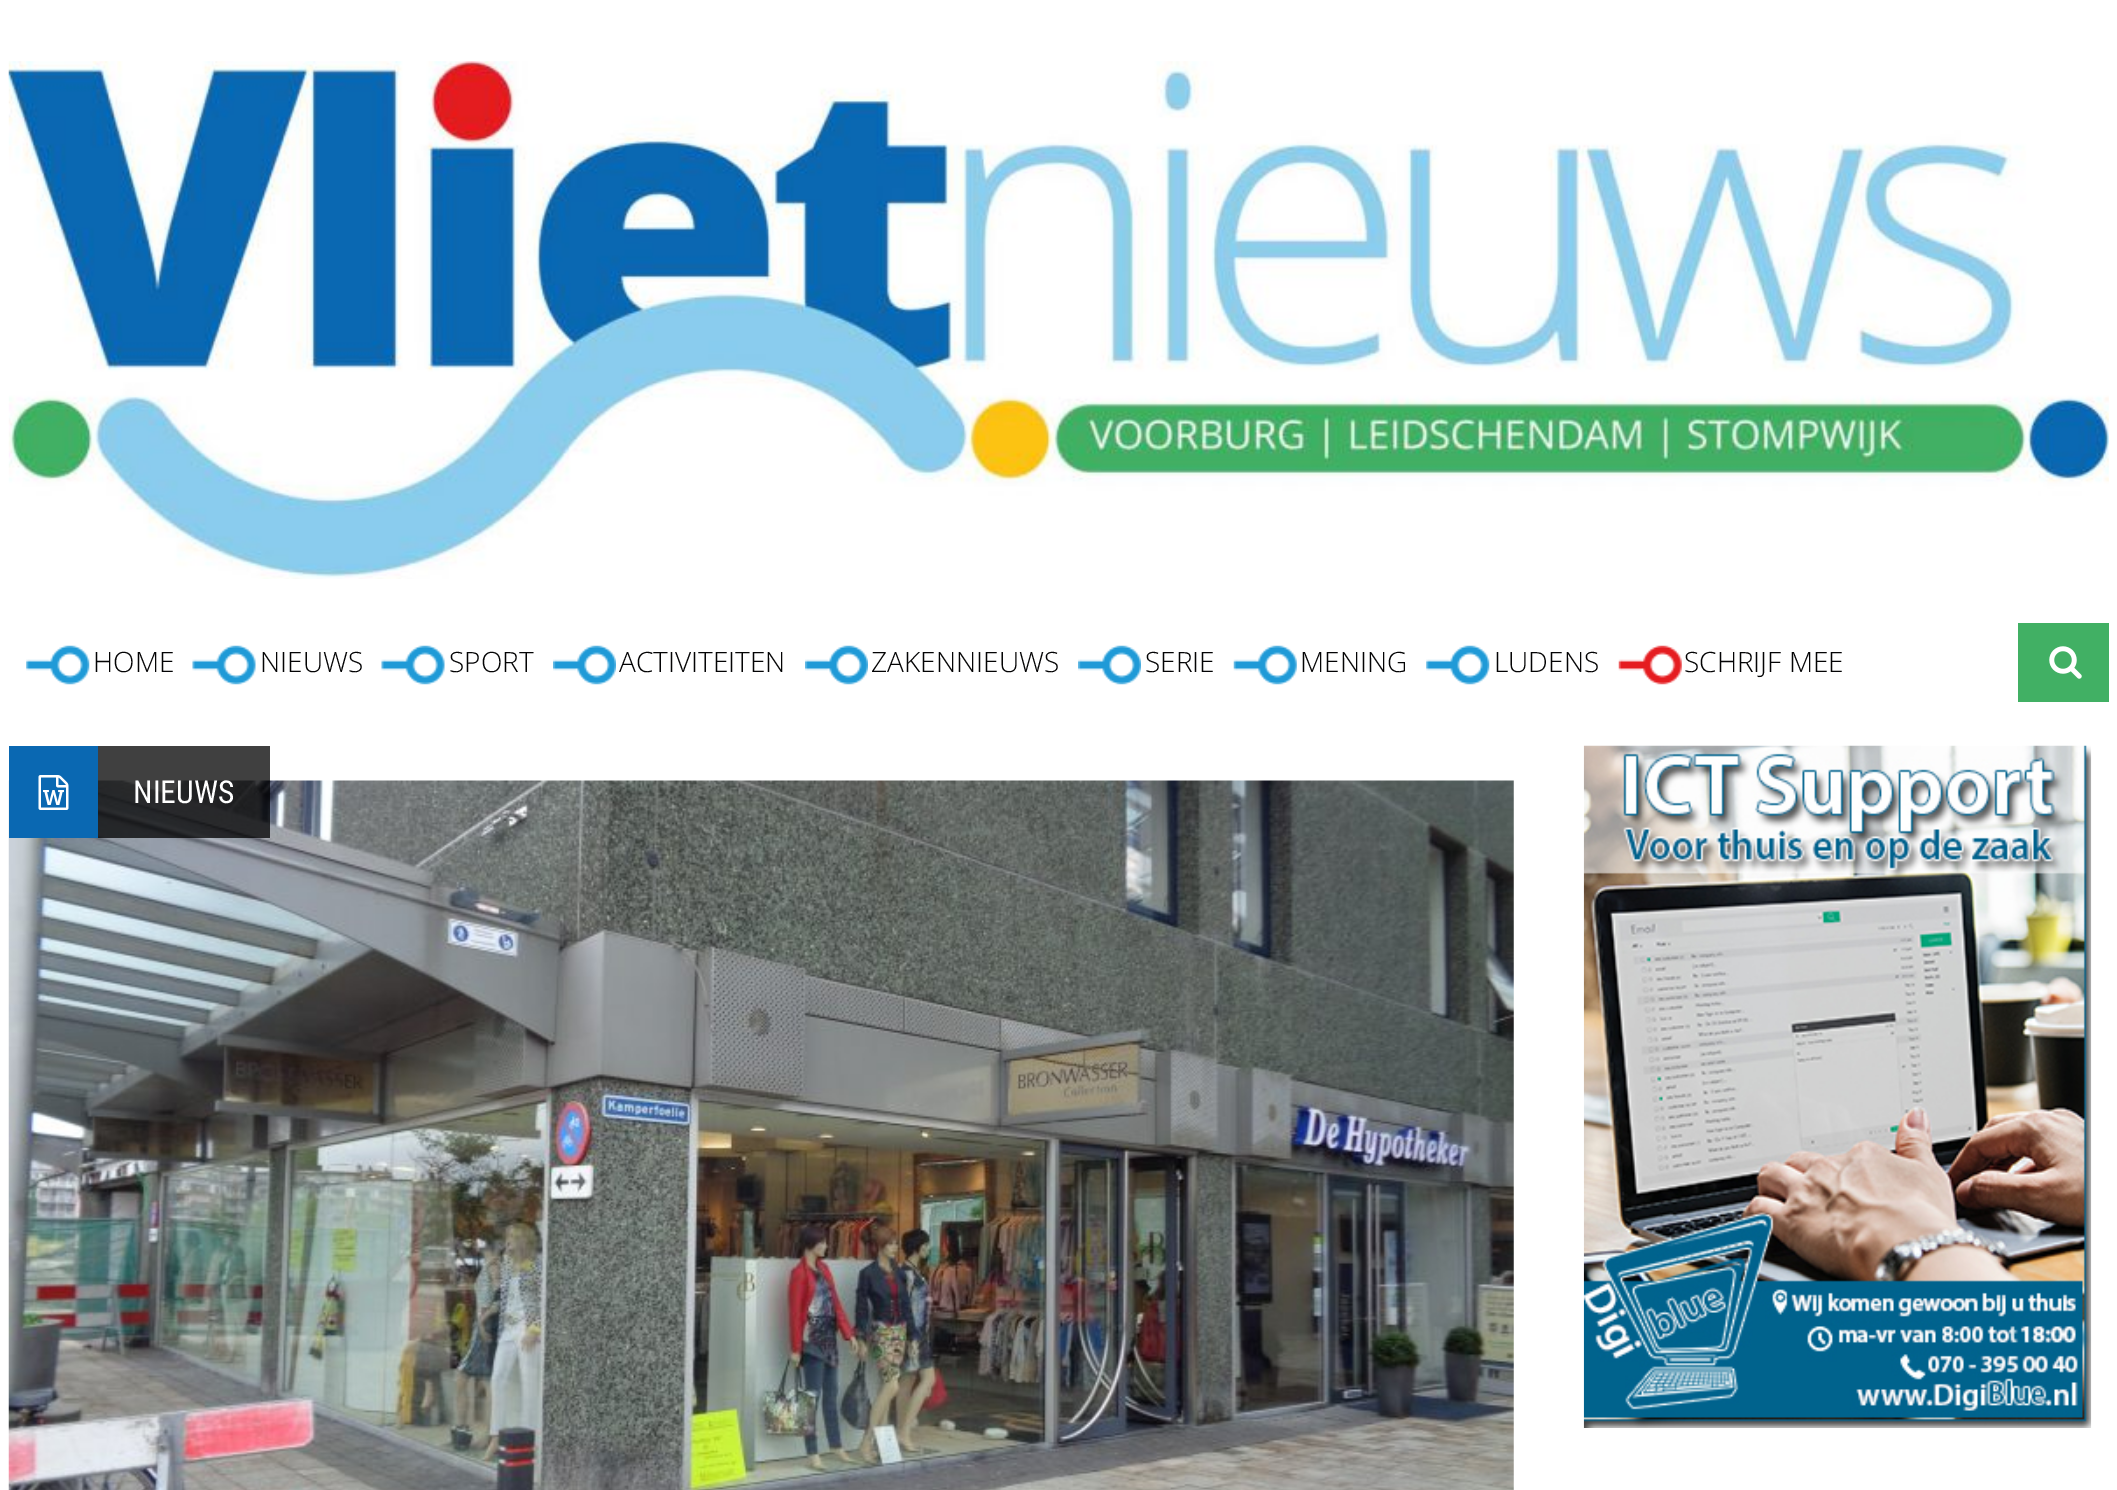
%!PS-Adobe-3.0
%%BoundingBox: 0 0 2117 1490
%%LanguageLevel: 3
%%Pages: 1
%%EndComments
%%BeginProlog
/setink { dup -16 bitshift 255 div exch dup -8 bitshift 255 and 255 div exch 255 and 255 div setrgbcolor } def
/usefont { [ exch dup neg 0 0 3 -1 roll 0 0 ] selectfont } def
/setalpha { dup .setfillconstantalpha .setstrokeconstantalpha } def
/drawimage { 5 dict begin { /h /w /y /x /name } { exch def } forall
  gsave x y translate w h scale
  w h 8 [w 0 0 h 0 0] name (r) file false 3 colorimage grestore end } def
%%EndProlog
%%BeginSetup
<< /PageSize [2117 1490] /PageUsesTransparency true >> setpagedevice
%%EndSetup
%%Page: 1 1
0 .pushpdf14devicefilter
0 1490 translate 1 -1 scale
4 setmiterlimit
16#FFFFFF setink
0 0 2117 1490 rectfill
(img1.raw) 8 61 2101 518 drawimage
(img2.raw) 26 645 64 40 drawimage
/OpenSans-Light 28 usefont
16#030304 setink
93 672 moveto (HOME) show
(img3.raw) 192 645 64 40 drawimage
260 672 moveto (NIEUWS) show
(img3.raw) 381 645 64 40 drawimage
449 672 moveto (SPORT) show
(img4.raw) 553 645 63 40 drawimage
619 672 moveto (ACTIVITEITEN) show
(img5.raw) 805 645 63 40 drawimage
871 672 moveto (ZAKENNIEUWS) show
(img5.raw) 1078 645 63 40 drawimage
1145 672 moveto (SERIE) show
(img6.raw) 1233 645 64 40 drawimage
1300 672 moveto (MENING) show
(img2.raw) 1426 645 64 40 drawimage
1494 672 moveto (LUDENS) show
(img7.raw) 1618 645 64 40 drawimage
1684 672 moveto (SCHRIJF MEE) show
16#41B064 setink
2018 623 91 79 rectfill
(img8.raw) 2049 646 33 33 drawimage
(img10.raw) 8 780 1506 710 drawimage
16#0A68B2 setink
9 746 89 92 rectfill
(img9.raw) 38 775 31 35 drawimage
0.75 setalpha
16#000000 setink
98 746 172 92 rectfill
/RobotoCondensed-Regular 31.5 usefont
1 setalpha
16#FFFFFF setink
133 803 moveto (NIEUWS) show
(img11.raw) 1583 745 509 683 drawimage
.poppdf14devicefilter showpage
%%EOF
